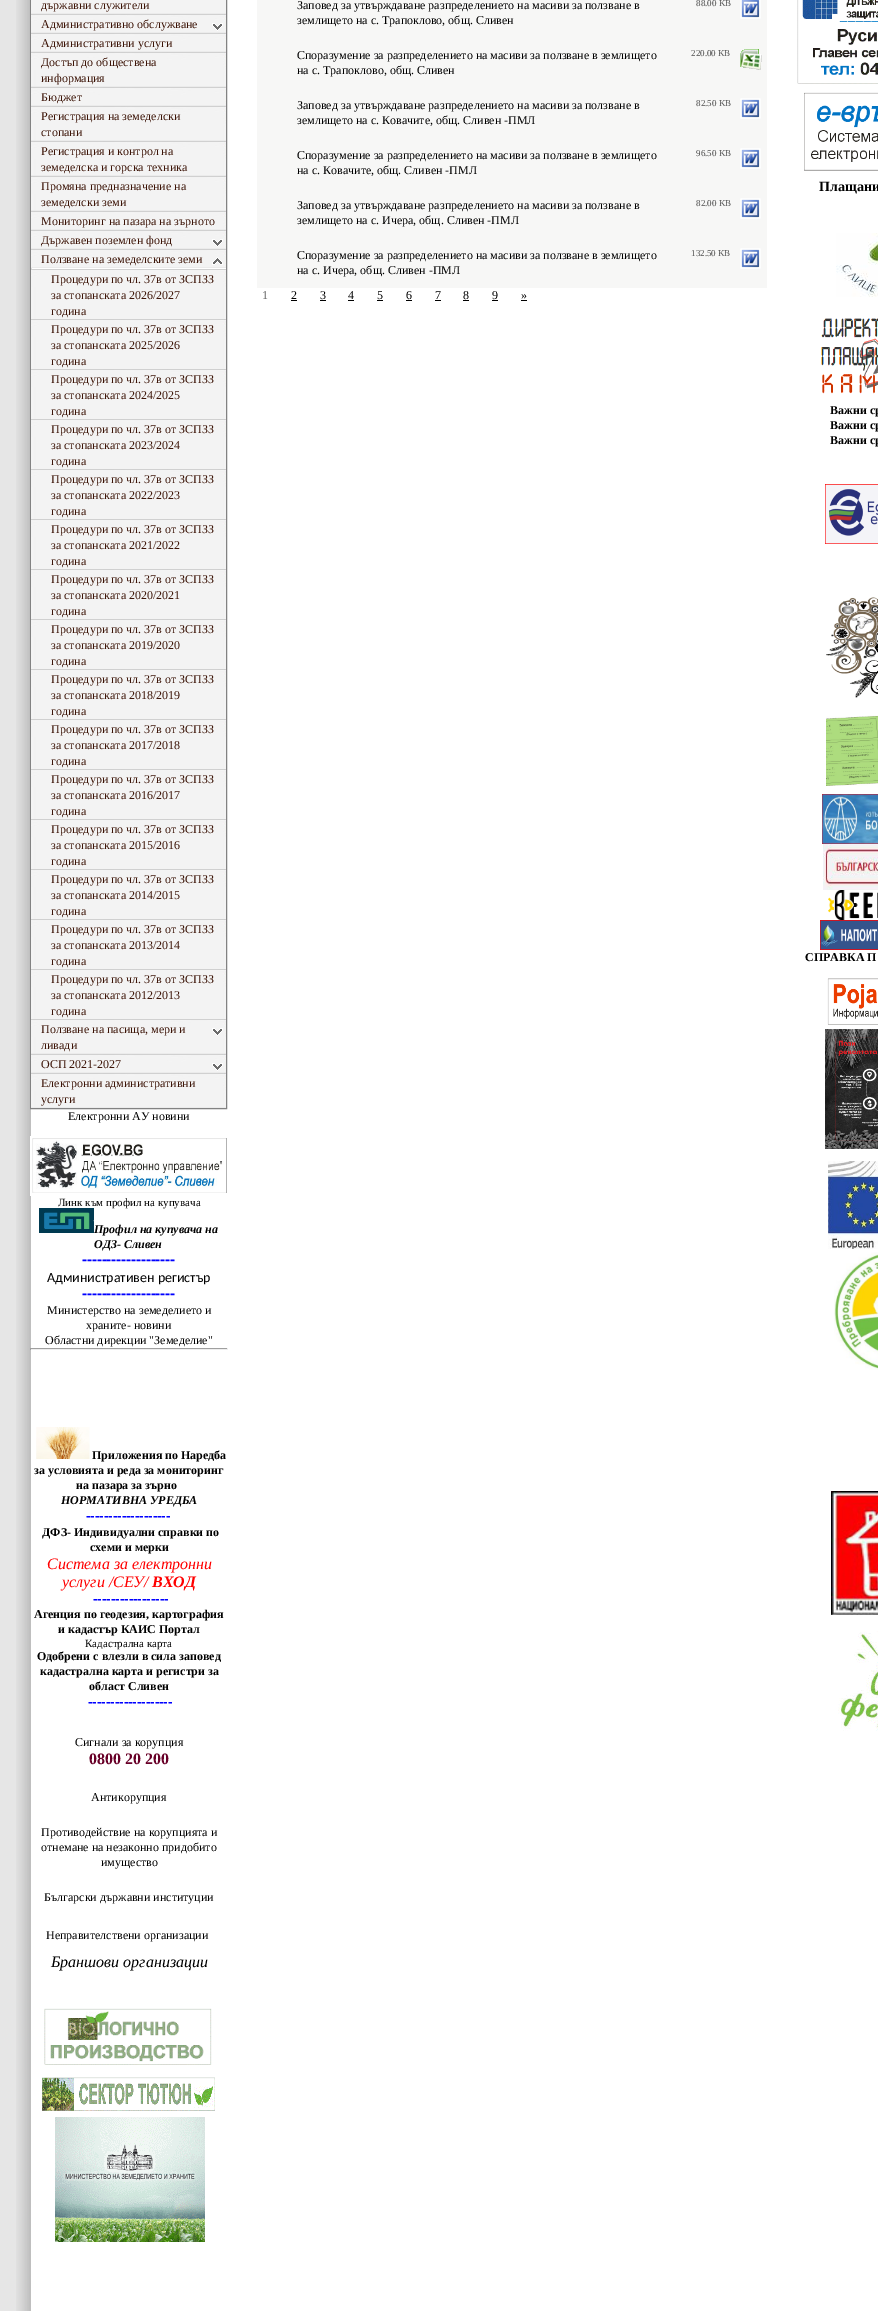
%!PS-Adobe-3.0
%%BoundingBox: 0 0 878 2311
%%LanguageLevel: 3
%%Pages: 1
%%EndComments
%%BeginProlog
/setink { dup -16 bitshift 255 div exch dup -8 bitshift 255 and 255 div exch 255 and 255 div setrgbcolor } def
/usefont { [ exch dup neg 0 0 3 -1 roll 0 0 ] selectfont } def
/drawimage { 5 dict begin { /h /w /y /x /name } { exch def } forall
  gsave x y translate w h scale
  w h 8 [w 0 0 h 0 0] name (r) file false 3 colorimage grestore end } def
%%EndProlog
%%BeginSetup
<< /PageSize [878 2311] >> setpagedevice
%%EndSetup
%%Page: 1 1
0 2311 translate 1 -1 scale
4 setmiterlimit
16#E6E6E6 setink
0 0 878 2311 rectfill
(img1.raw) 16 0 862 2311 drawimage
16#828282 setink
30.5 -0.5 196 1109 rectstroke
16#F3F3F3 setink
31 0 195 13 rectfill
16#EBEBEB setink
31 13 195 1 rectfill
/LiberationSerif-Regular 12 usefont
16#3D1508 setink
41 9 moveto (държавни служители) show
(img2.raw) 31 14 195 18 drawimage
16#EBEBEB setink
31 32 195 1 rectfill
(img3.raw) 212 23 11 8 drawimage
16#3D1508 setink
41 28 moveto (Административно обслужване) show
(img2.raw) 31 33 195 18 drawimage
16#EBEBEB setink
31 51 195 1 rectfill
16#3D1508 setink
41 47 moveto (Административни услуги) show
(img4.raw) 31 52 195 34 drawimage
16#EBEBEB setink
31 86 195 1 rectfill
16#3D1508 setink
41 66 moveto (Достъп до обществена) show
41 82 moveto (информация) show
(img2.raw) 31 87 195 18 drawimage
16#EBEBEB setink
31 105 195 1 rectfill
16#3D1508 setink
41 101 moveto (Бюджет) show
(img4.raw) 31 106 195 34 drawimage
16#EBEBEB setink
31 140 195 1 rectfill
16#3D1508 setink
41 120 moveto (Регистрация на земеделски) show
41 136 moveto (стопани) show
(img4.raw) 31 141 195 34 drawimage
16#EBEBEB setink
31 175 195 1 rectfill
16#3D1508 setink
41 155 moveto (Регистрация и контрол на) show
41 171 moveto (земеделска и горска техника) show
(img4.raw) 31 176 195 34 drawimage
16#EBEBEB setink
31 210 195 1 rectfill
16#3D1508 setink
41 190 moveto (Промяна предназначение на) show
41 206 moveto (земеделски земи) show
(img2.raw) 31 211 195 18 drawimage
16#EBEBEB setink
31 229 195 1 rectfill
16#3D1508 setink
41 225 moveto (Мониторинг на пазара на зърното) show
(img2.raw) 31 230 195 18 drawimage
16#EBEBEB setink
31 248 195 1 rectfill
(img3.raw) 212 239 11 8 drawimage
16#3D1508 setink
41 244 moveto (Държавен поземлен фонд) show
(img2.raw) 31 249 195 18 drawimage
16#EBEBEB setink
31 267 195 1 rectfill
(img5.raw) 212 257 11 8 drawimage
16#3D1508 setink
41 263 moveto (Ползване на земеделските земи) show
(img6.raw) 31 269 195 50 drawimage
[
    [(Процедури по чл. 37в от ЗСПЗЗ) 51 283]
    [(за стопанската 2026/2027) 51 299]
    [(година) 51 315]
] { aload pop moveto show } forall
(img6.raw) 31 319 195 50 drawimage
[
    [(Процедури по чл. 37в от ЗСПЗЗ) 51 333]
    [(за стопанската 2025/2026) 51 349]
    [(година) 51 365]
] { aload pop moveto show } forall
(img6.raw) 31 369 195 50 drawimage
[
    [(Процедури по чл. 37в от ЗСПЗЗ) 51 383]
    [(за стопанската 2024/2025) 51 399]
    [(година) 51 415]
] { aload pop moveto show } forall
(img6.raw) 31 419 195 50 drawimage
[
    [(Процедури по чл. 37в от ЗСПЗЗ) 51 433]
    [(за стопанската 2023/2024) 51 449]
    [(година) 51 465]
] { aload pop moveto show } forall
(img6.raw) 31 469 195 50 drawimage
[
    [(Процедури по чл. 37в от ЗСПЗЗ) 51 483]
    [(за стопанската 2022/2023) 51 499]
    [(година) 51 515]
] { aload pop moveto show } forall
(img6.raw) 31 519 195 50 drawimage
[
    [(Процедури по чл. 37в от ЗСПЗЗ) 51 533]
    [(за стопанската 2021/2022) 51 549]
    [(година) 51 565]
] { aload pop moveto show } forall
(img6.raw) 31 569 195 50 drawimage
[
    [(Процедури по чл. 37в от ЗСПЗЗ) 51 583]
    [(за стопанската 2020/2021) 51 599]
    [(година) 51 615]
] { aload pop moveto show } forall
(img6.raw) 31 619 195 50 drawimage
[
    [(Процедури по чл. 37в от ЗСПЗЗ) 51 633]
    [(за стопанската 2019/2020) 51 649]
    [(година) 51 665]
] { aload pop moveto show } forall
(img6.raw) 31 669 195 50 drawimage
[
    [(Процедури по чл. 37в от ЗСПЗЗ) 51 683]
    [(за стопанската 2018/2019) 51 699]
    [(година) 51 715]
] { aload pop moveto show } forall
(img6.raw) 31 719 195 50 drawimage
[
    [(Процедури по чл. 37в от ЗСПЗЗ) 51 733]
    [(за стопанската 2017/2018) 51 749]
    [(година) 51 765]
] { aload pop moveto show } forall
(img6.raw) 31 769 195 50 drawimage
[
    [(Процедури по чл. 37в от ЗСПЗЗ) 51 783]
    [(за стопанската 2016/2017) 51 799]
    [(година) 51 815]
] { aload pop moveto show } forall
(img6.raw) 31 819 195 50 drawimage
[
    [(Процедури по чл. 37в от ЗСПЗЗ) 51 833]
    [(за стопанската 2015/2016) 51 849]
    [(година) 51 865]
] { aload pop moveto show } forall
(img6.raw) 31 869 195 50 drawimage
[
    [(Процедури по чл. 37в от ЗСПЗЗ) 51 883]
    [(за стопанската 2014/2015) 51 899]
    [(година) 51 915]
] { aload pop moveto show } forall
(img6.raw) 31 919 195 50 drawimage
[
    [(Процедури по чл. 37в от ЗСПЗЗ) 51 933]
    [(за стопанската 2013/2014) 51 949]
    [(година) 51 965]
] { aload pop moveto show } forall
(img6.raw) 31 969 195 50 drawimage
[
    [(Процедури по чл. 37в от ЗСПЗЗ) 51 983]
    [(за стопанската 2012/2013) 51 999]
    [(година) 51 1015]
] { aload pop moveto show } forall
(img4.raw) 31 1019 195 34 drawimage
16#EBEBEB setink
31 1053 195 1 rectfill
(img3.raw) 212 1028 11 8 drawimage
16#3D1508 setink
41 1033 moveto (Ползване на пасища, мери и) show
41 1049 moveto (ливади) show
(img2.raw) 31 1054 195 18 drawimage
16#EBEBEB setink
31 1072 195 1 rectfill
(img3.raw) 212 1063 11 8 drawimage
16#3D1508 setink
41 1068 moveto (ОСП 2021-2027) show
(img4.raw) 31 1073 195 34 drawimage
16#EBEBEB setink
31 1107 195 1 rectfill
16#3D1508 setink
41 1087 moveto (Електронни административни) show
41 1103 moveto (услуги) show
16#000000 setink
68 1120 moveto (Електронни АУ новини) show
(img7.raw) 30 1136 197 60 drawimage
/LiberationSerif-Regular 11 usefont
58 1206 moveto (Линк към профил на купувача) show
(img8.raw) 39 1208 55 25 drawimage
/LiberationSerif-BoldItalic 12 usefont
94 1233 moveto (Профил на купувача на) show
94 1248 moveto (ОДЗ- Сливен) show
/Carlito-Bold 16 usefont
16#0000FF setink
82 1265 moveto (-------------------) show
/Carlito-Regular 14 usefont
16#000000 setink
47 1282 moveto (Административен регистър) show
/Carlito-Bold 16 usefont
16#0000FF setink
82 1299 moveto (-------------------) show
/LiberationSerif-Regular 12 usefont
16#000000 setink
[
    [(Министерство на земеделието и) 47 1314]
    [(храните- новини) 86 1329]
    [(Областни дирекции "Земеделие") 45 1344]
] { aload pop moveto show } forall
[
    [30 1348 198 1 16#9F9F9F]
    [227 1348 1 2 16#EEEEEE]
    [30 1349 198 1 16#EEEEEE]
    [30 1348 1 2 16#9F9F9F]
] { aload pop setink rectfill } forall
(img9.raw) 36 1427 54 32 drawimage
/LiberationSerif-Bold 12 usefont
16#000000 setink
[
    [(Приложения по Наредба) 92 1459]
    [(за условията и реда за мониторинг) 34 1474]
    [(на пазара за зърно) 76 1489]
] { aload pop moveto show } forall
/LiberationSerif-BoldItalic 12 usefont
61 1504 moveto (НОРМАТИВНА УРЕДБА) show
/Carlito-Bold 14.5 usefont
16#0000FF setink
86 1521 moveto (-------------------) show
/LiberationSerif-Bold 12 usefont
16#000000 setink
42 1536 moveto (ДФЗ- Индивидуални справки по) show
90 1551 moveto (схеми и мерки) show
/LiberationSerif-Italic 16 usefont
16#FF0000 setink
47 1569 moveto (Система за електронни) show
62 1587 moveto (услуги /СЕУ/) show
/LiberationSerif-BoldItalic 16 usefont
152 1587 moveto (ВХОД) show
/Carlito-Bold 14.5 usefont
16#0000FF setink
93 1604 moveto (-----------------) show
/LiberationSerif-Bold 12 usefont
16#000000 setink
34 1618 moveto (Агенция по геодезия, картография) show
58 1633 moveto (и кадастър КАИС Портал) show
/LiberationSerif-Regular 11 usefont
85 1647 moveto (Кадастрална карта) show
/LiberationSerif-Bold 12 usefont
[
    [(Одобрени с влезли в сила заповед) 37 1660]
    [(кадастрална карта и регистри за) 40 1675]
    [(област Сливен) 89 1690]
] { aload pop moveto show } forall
/Carlito-Bold 14.5 usefont
16#0000FF setink
88 1707 moveto (-------------------) show
/LiberationSerif-Regular 12 usefont
16#000000 setink
75 1746 moveto (Сигнали за корупция) show
/LiberationSerif-Bold 16 usefont
16#680028 setink
89 1764 moveto (0800 20 200) show
/LiberationSerif-Regular 12 usefont
16#000000 setink
[
    [(Антикорупция) 91 1801]
    [(Противодействие на корупцията и) 41 1836]
    [(отнемане на незаконно придобито) 41 1851]
    [(имущество) 101 1866]
    [(Български държавни институции) 44 1901]
    [(Неправителствени организации) 46 1939]
] { aload pop moveto show } forall
/LiberationSerif-Italic 16 usefont
51 1967 moveto (Браншови организации) show
(img10.raw) 44 2008 168 57 drawimage
(img11.raw) 42 2077 173 34 drawimage
(img12.raw) 55 2117 150 125 drawimage
16#F7F7F6 setink
257 0 510 38 rectfill
/LiberationSerif-Regular 12 usefont
16#000000 setink
297 9 moveto (Заповед за утвърждаване разпределението на масиви за ползване в) show
297 24 moveto (землището на с. Трапоклово, общ. Сливен) show
/LiberationSerif-Regular 9 usefont
16#4D4D4D setink
696 6 moveto (88.00 KB) show
(img13.raw) 740 0 21 19 drawimage
16#F7F7F6 setink
257 38 510 50 rectfill
/LiberationSerif-Regular 12 usefont
16#000000 setink
297 59 moveto (Споразумение за разпределението на масиви за ползване в землището) show
297 74 moveto (на с. Трапоклово, общ. Сливен) show
/LiberationSerif-Regular 9 usefont
16#4D4D4D setink
691 56 moveto (220.00 KB) show
(img14.raw) 740 49 22 21 drawimage
16#F7F7F6 setink
257 88 510 50 rectfill
/LiberationSerif-Regular 12 usefont
16#000000 setink
297 109 moveto (Заповед за утвърждаване разпределението на масиви за ползване в) show
297 124 moveto (землището на с. Ковачите, общ. Сливен -ПМЛ) show
/LiberationSerif-Regular 9 usefont
16#4D4D4D setink
696 106 moveto (82.50 KB) show
(img15.raw) 740 98 21 21 drawimage
16#F7F7F6 setink
257 138 510 50 rectfill
/LiberationSerif-Regular 12 usefont
16#000000 setink
297 159 moveto (Споразумение за разпределението на масиви за ползване в землището) show
297 174 moveto (на с. Ковачите, общ. Сливен -ПМЛ) show
/LiberationSerif-Regular 9 usefont
16#4D4D4D setink
696 156 moveto (96.50 KB) show
(img15.raw) 740 148 21 21 drawimage
16#F7F7F6 setink
257 188 510 50 rectfill
/LiberationSerif-Regular 12 usefont
16#000000 setink
297 209 moveto (Заповед за утвърждаване разпределението на масиви за ползване в) show
297 224 moveto (землището на с. Ичера, общ. Сливен -ПМЛ) show
/LiberationSerif-Regular 9 usefont
16#4D4D4D setink
696 206 moveto (82.00 KB) show
(img15.raw) 740 198 21 21 drawimage
16#F7F7F6 setink
257 238 510 50 rectfill
/LiberationSerif-Regular 12 usefont
16#000000 setink
297 259 moveto (Споразумение за разпределението на масиви за ползване в землището) show
297 274 moveto (на с. Ичера, общ. Сливен -ПМЛ) show
/LiberationSerif-Regular 9 usefont
16#4D4D4D setink
691 256 moveto (132.50 KB) show
(img15.raw) 740 248 21 21 drawimage
/LiberationSerif-Regular 12 usefont
16#666666 setink
262 299 moveto (1) show
16#000000 setink
291 299 moveto (2) show
291 300 6 1 rectfill
320 299 moveto (3) show
320 300 6 1 rectfill
348 299 moveto (4) show
348 300 6 1 rectfill
377 299 moveto (5) show
377 300 6 1 rectfill
406 299 moveto (6) show
406 300 6 1 rectfill
435 299 moveto (7) show
435 300 6 1 rectfill
463 299 moveto (8) show
463 300 6 1 rectfill
492 299 moveto (9) show
492 300 6 1 rectfill
521 299 moveto (») show
521 300 6 1 rectfill
(img16.raw) 797 0 81 84 drawimage
(img17.raw) 804 92 74 79 drawimage
/LiberationSerif-Bold 14 usefont
819 191 moveto (Плащани) show
(img18.raw) 836 233 42 64 drawimage
(img19.raw) 821 318 57 76 drawimage
/LiberationSerif-Bold 12 usefont
[
    [(Важни ср) 830 414]
    [(Важни ср) 830 429]
    [(Важни ср) 830 444]
] { aload pop moveto show } forall
(img20.raw) 825 484 53 60 drawimage
(img21.raw) 826 597 52 101 drawimage
(img22.raw) 826 715 52 71 drawimage
(img23.raw) 822 794 56 50 drawimage
(img24.raw) 823 844 55 46 drawimage
(img25.raw) 828 890 50 30 drawimage
(img26.raw) 820 920 58 30 drawimage
805 961 moveto (СПРАВКА П) show
(img27.raw) 827 978 51 47 drawimage
(img28.raw) 825 1029 53 120 drawimage
(img29.raw) 828 1161 50 88 drawimage
(img30.raw) 834 1252 44 118 drawimage
(img31.raw) 831 1491 47 124 drawimage
(img32.raw) 838 1631 40 100 drawimage
showpage
%%EOF
